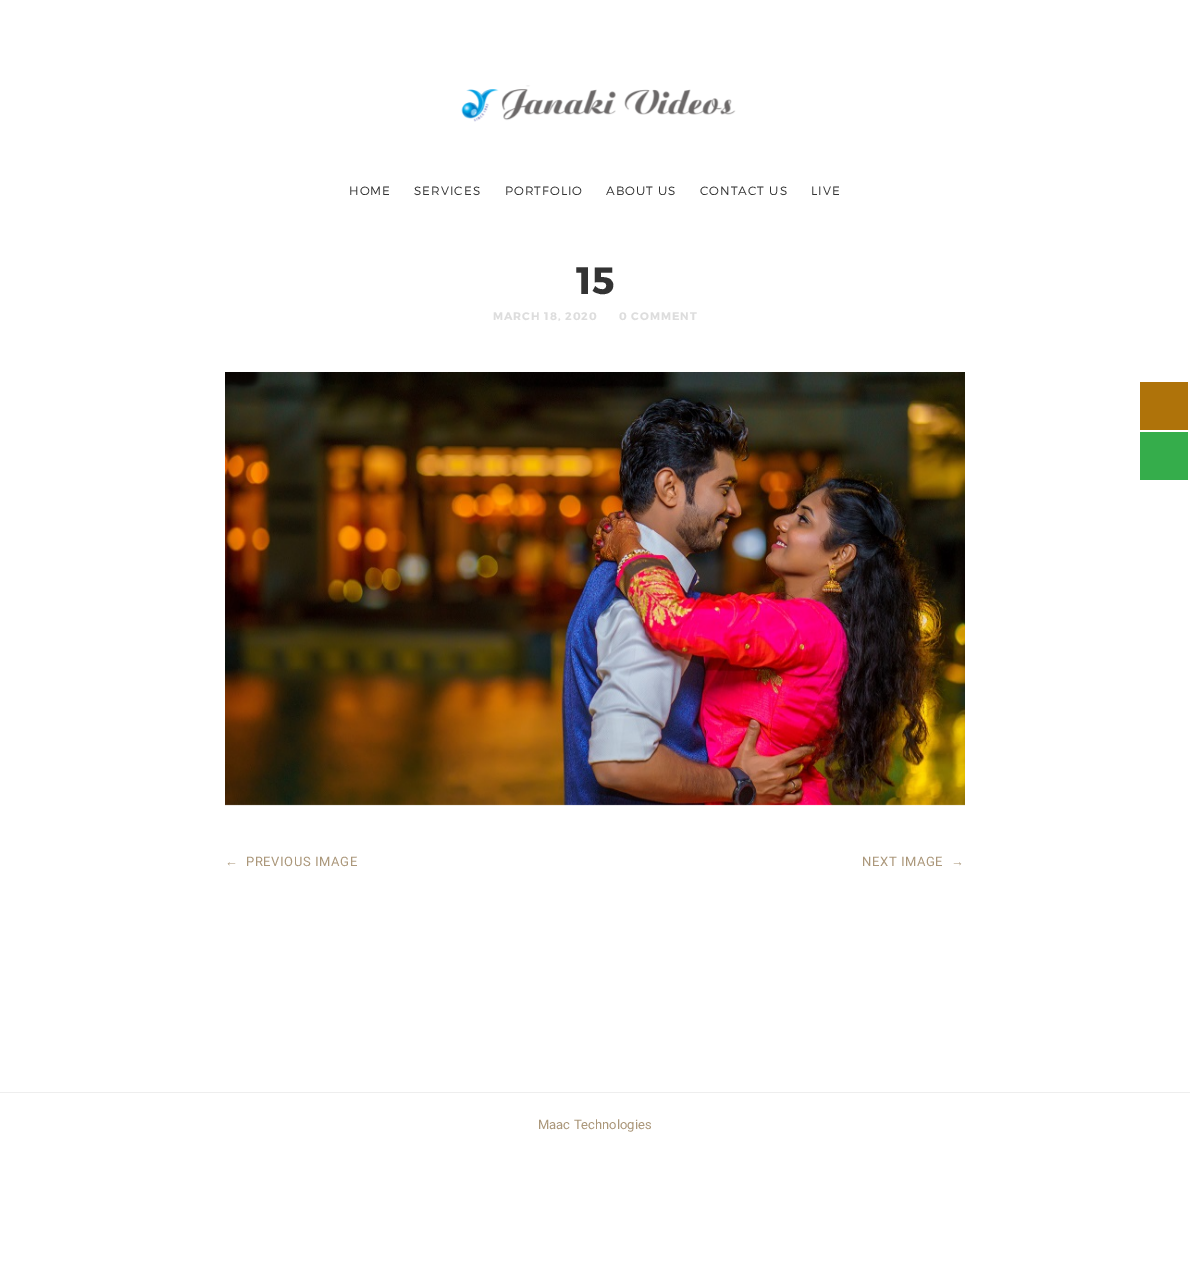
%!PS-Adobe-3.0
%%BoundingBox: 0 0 1190 1288
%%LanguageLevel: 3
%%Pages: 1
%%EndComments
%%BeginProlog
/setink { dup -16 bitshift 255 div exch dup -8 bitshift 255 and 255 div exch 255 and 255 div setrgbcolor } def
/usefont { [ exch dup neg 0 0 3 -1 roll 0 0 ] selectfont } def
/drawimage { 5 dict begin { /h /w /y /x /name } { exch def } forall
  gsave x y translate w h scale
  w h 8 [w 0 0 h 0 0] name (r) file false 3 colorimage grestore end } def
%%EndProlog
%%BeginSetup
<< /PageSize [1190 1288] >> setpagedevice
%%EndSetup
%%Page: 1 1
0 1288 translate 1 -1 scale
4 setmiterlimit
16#FFFFFF setink
0 0 1190 1288 rectfill
(img1.raw) 461 85 275 37 drawimage
/Montserrat-Light 12 usefont
16#333333 setink
349 195 moveto 1 0 (HOME) ashow
414 195 moveto 1 0 (SERVICES) ashow
505 195 moveto 1 0 (PORTFOLIO) ashow
606 195 moveto 1 0 (ABOUT US) ashow
700 195 moveto 1 0 (CONTACT US) ashow
811 195 moveto 1 0 (LIVE) ashow
/Montserrat-Bold 38 usefont
576 294 moveto (15) show
/Montserrat-Bold 11 usefont
16#DDDDDD setink
493 320 moveto 1 0 (MARCH 18, 2020) ashow
619 320 moveto 1 0 (0 COMMENT) ashow
(img2.raw) 225 372 740 434 drawimage
/LiberationSans-Regular 13 usefont
16#AB977A setink
225 866 moveto 0.6 0 (←) ashow
/Roboto-Regular 13 usefont
246 866 moveto 0.6 0 (PREVIOUS IMAGE) ashow
862 866 moveto 0.6 0 (NEXT IMAGE) ashow
/LiberationSans-Regular 13 usefont
951 866 moveto 0.6 0 (→) ashow
16#EEEEEE setink
0 1092 1190 1 rectfill
/Roboto-Regular 13 usefont
16#AB977A setink
538 1129 moveto (Maac Technologies) show
16#AF730A setink
1140 382 48 48 rectfill
16#35AD4B setink
1140 432 48 48 rectfill
showpage
%%EOF
